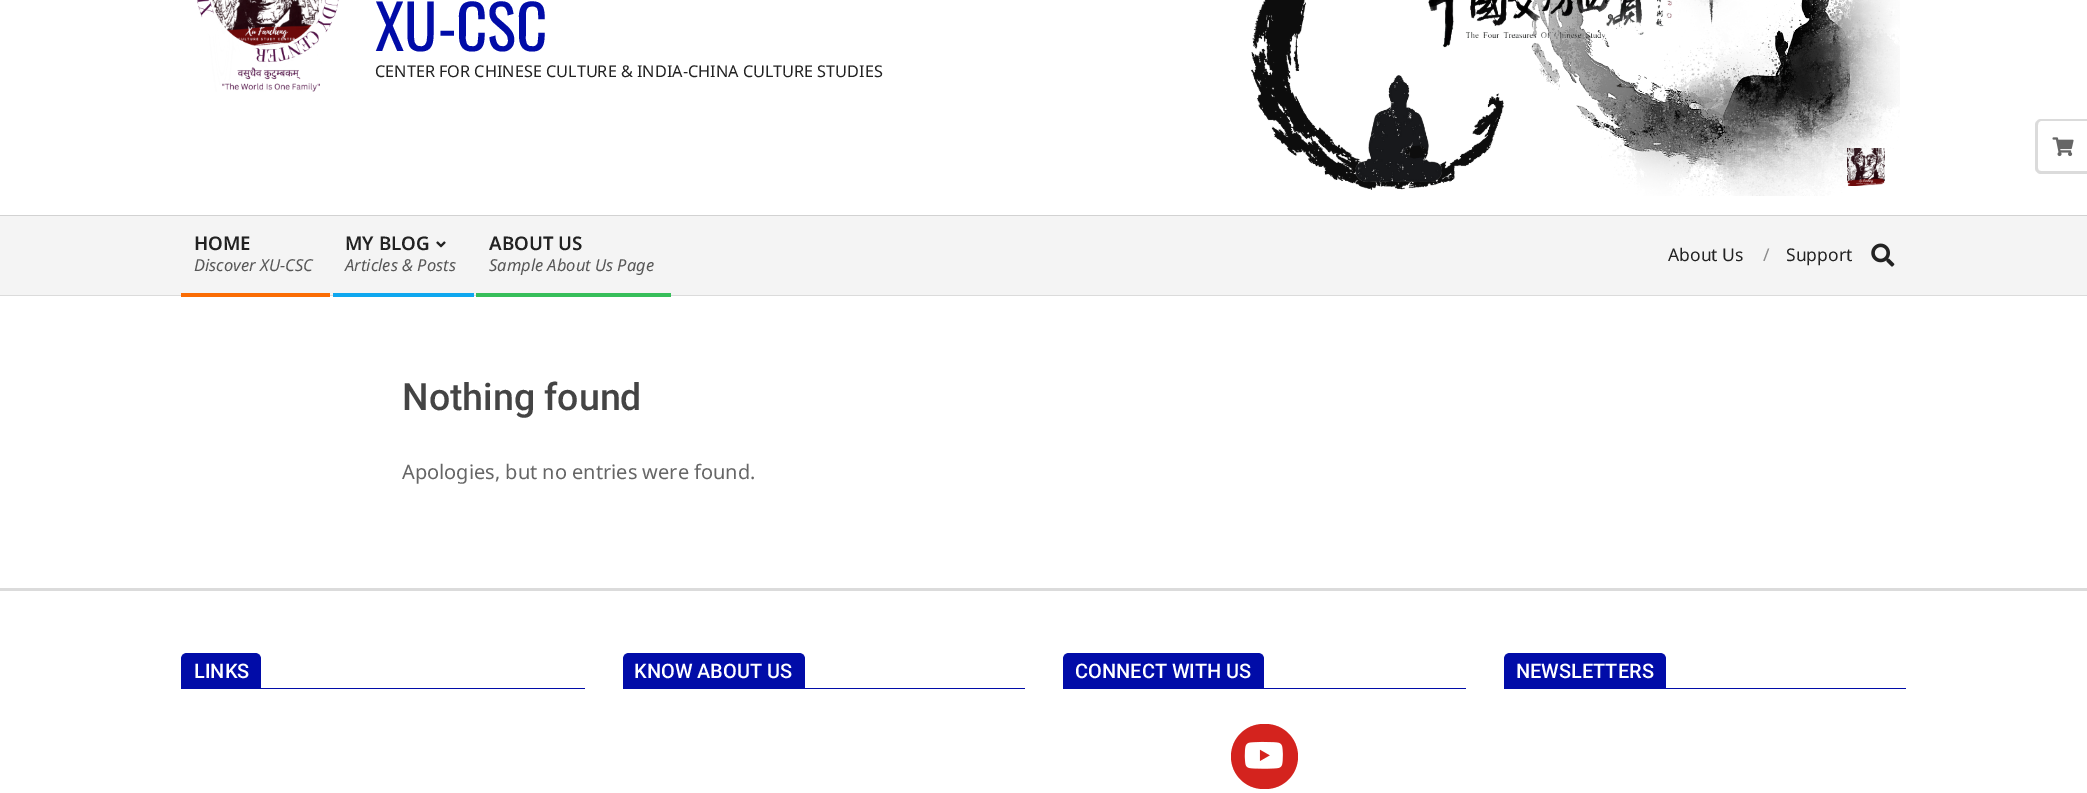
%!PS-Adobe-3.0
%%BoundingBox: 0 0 2087 793
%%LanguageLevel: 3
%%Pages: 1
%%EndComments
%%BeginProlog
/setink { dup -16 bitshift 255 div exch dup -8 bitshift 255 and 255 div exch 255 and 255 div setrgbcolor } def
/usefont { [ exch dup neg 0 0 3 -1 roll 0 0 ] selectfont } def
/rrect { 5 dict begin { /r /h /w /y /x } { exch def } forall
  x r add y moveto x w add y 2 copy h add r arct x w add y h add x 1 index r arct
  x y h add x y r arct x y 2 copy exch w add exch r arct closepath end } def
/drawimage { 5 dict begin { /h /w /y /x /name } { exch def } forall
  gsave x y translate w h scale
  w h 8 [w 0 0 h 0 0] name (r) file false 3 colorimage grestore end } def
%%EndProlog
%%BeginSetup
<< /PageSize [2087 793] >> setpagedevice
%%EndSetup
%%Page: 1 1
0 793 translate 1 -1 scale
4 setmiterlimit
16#FFFFFF setink
0 0 2087 793 rectfill
16#DBDBDB setink
0 295 2087 1 rectfill
(img1.raw) 197 0 142 92 drawimage
/Oswald-Regular 61 usefont
16#010CA8 setink
375 51 moveto (XU-CSC) show
/NotoSans-Regular 16.25 usefont
16#222222 setink
375 77 moveto (CENTER FOR CHINESE CULTURE & INDIA-CHINA CULTURE STUDIES) show
(img2.raw) 1250 0 650 196 drawimage
16#F4F4F4 setink
0 216 2087 79 rectfill
16#D2D2D2 setink
0 215 2087 1 rectfill
/NotoSans-SemiBold 18.75 usefont
16#222222 setink
194 250 moveto (HOME) show
/NotoSans-Italic 16.5 usefont
16#575757 setink
194 271 moveto (Discover XU-CSC) show
16#FA6C04 setink
181 293 149 4 rectfill
/NotoSans-SemiBold 18.75 usefont
16#222222 setink
345 250 moveto (MY BLOG) show
(img3.raw) 436 241 10 7 drawimage
/NotoSans-Italic 16.5 usefont
16#575757 setink
345 271 moveto (Articles & Posts) show
16#0EA7EF setink
333 293 141 4 rectfill
/NotoSans-SemiBold 18.75 usefont
16#222222 setink
489 250 moveto (ABOUT US) show
/NotoSans-Italic 16.5 usefont
16#575757 setink
489 271 moveto (Sample About Us Page) show
16#37BE5A setink
476 293 195 4 rectfill
/NotoSans-Regular 17.5 usefont
16#222222 setink
1668 261 moveto (About Us) show
16#8B8B8B setink
1763 261 moveto (/) show
16#222222 setink
1786 261 moveto (Support) show
(img4.raw) 1871 243 24 24 drawimage
/Roboto-Medium 37.5 usefont
16#444444 setink
402 410 moveto (Nothing found) show
/NotoSans-Regular 20 usefont
16#666666 setink
402 479 moveto (Apologies, but no entries were found.) show
16#DBDBDB setink
0 588 2087 3 rectfill
16#010CA8 setink
187 653 moveto 255 653 lineto 258.5 653 261 655.5 261 659 curveto 261 689 lineto 181 689 lineto 181 659 lineto 181 655.5 183.5 653 187 653 curveto closepath fill
/Roboto-Medium 20 usefont
16#FFFFFF setink
194 678 moveto (LINKS) show
16#010CA8 setink
261 688 324 1 rectfill
629 653 moveto 799 653 lineto 802.5 653 805 655.5 805 659 curveto 805 689 lineto 623 689 lineto 623 659 lineto 623 655.5 625.5 653 629 653 curveto closepath fill
16#FFFFFF setink
634 678 moveto (KNOW ABOUT US) show
16#010CA8 setink
805 688 220 1 rectfill
1069 653 moveto 1258 653 lineto 1261.5 653 1264 655.5 1264 659 curveto 1264 689 lineto 1063 689 lineto 1063 659 lineto 1063 655.5 1065.5 653 1069 653 curveto closepath fill
16#FFFFFF setink
1075 678 moveto (CONNECT WITH US) show
16#010CA8 setink
1264 688 202 1 rectfill
16#D4231E setink
1231 724 67 65 32.5 rrect fill
(img5.raw) 1244 741 39 28 drawimage
16#010CA8 setink
1510 653 moveto 1660 653 lineto 1663.5 653 1666 655.5 1666 659 curveto 1666 689 lineto 1504 689 lineto 1504 659 lineto 1504 655.5 1506.5 653 1510 653 curveto closepath fill
16#FFFFFF setink
1516 678 moveto (NEWSLETTERS) show
16#010CA8 setink
1666 688 240 1 rectfill
16#DBDBDB setink
2041 119 moveto 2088 119 lineto 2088 174 lineto 2041 174 lineto 2038 174 2035 171 2035 168 curveto 2035 125 lineto 2035 122 2038 119 2041 119 curveto closepath 2041 121 moveto 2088 121 lineto 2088 171 lineto 2041 171 lineto 2039 171 2038 170 2038 168 curveto 2038 125 lineto 2038 123 2039 121 2041 121 curveto closepath eofill
(img6.raw) 2052 137 22 20 drawimage
showpage
%%EOF
